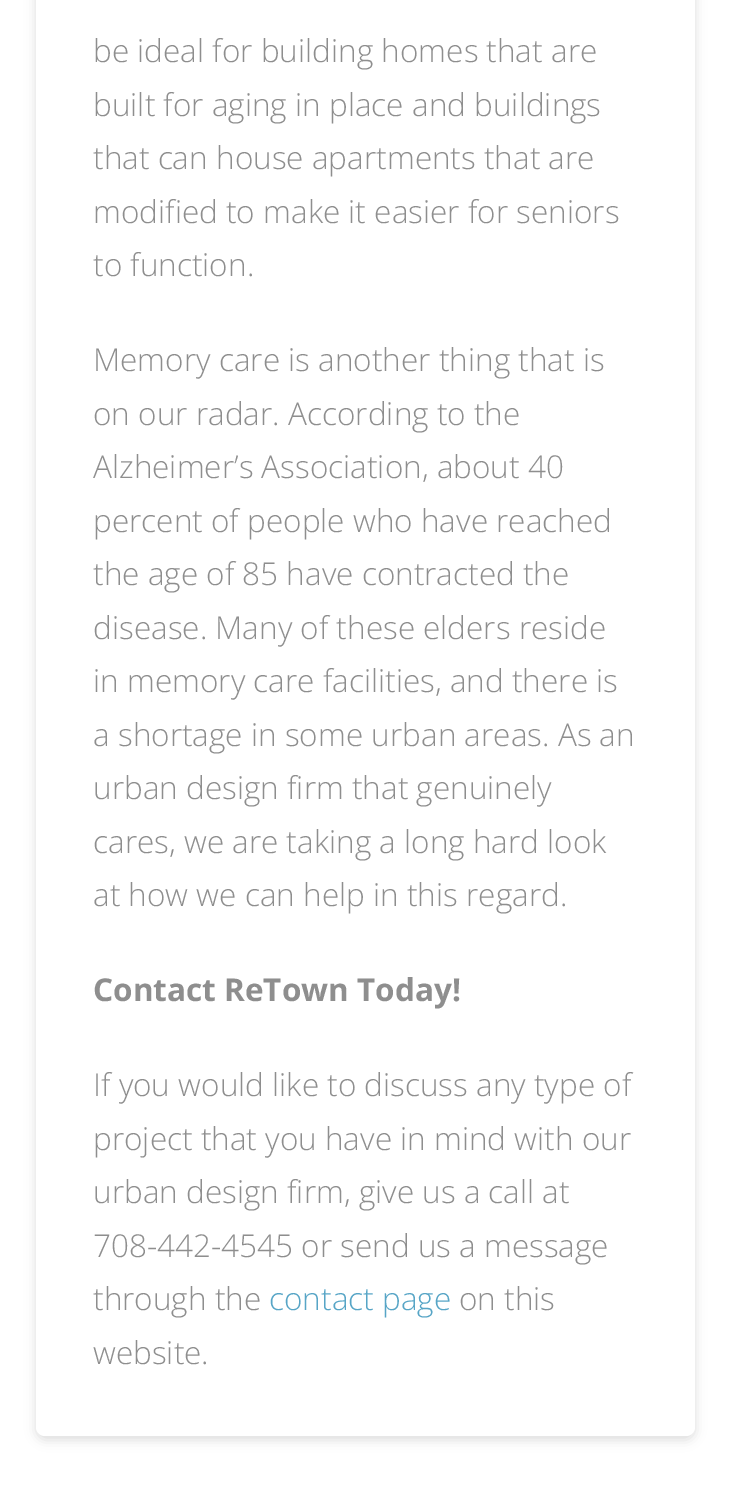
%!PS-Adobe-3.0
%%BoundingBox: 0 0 730 1506
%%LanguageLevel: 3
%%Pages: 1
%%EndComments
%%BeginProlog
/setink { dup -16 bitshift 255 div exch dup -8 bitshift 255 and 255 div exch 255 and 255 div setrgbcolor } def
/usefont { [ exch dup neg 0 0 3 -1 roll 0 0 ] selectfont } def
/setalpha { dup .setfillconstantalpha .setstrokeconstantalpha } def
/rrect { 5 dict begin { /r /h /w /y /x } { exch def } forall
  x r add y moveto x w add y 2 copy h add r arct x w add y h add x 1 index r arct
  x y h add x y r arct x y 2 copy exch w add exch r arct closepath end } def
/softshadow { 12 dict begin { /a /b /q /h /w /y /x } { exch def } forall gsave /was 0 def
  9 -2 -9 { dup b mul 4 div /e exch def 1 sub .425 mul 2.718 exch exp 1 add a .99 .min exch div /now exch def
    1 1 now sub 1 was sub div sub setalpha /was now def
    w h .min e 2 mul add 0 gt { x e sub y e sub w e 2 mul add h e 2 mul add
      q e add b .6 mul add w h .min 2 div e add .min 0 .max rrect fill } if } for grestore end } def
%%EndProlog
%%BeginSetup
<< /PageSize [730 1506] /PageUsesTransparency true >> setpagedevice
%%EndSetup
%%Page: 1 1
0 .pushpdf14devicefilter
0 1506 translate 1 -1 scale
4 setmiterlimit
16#FFFFFF setink
0 0 730 1506 rectfill
16#000000 setink
36 -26 659 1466 9 5.5 0.13 softshadow
16#FFFFFF setink
36 -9 659 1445 9 rrect fill
/OpenSans-Light 31.5 usefont
16#8E8E8E setink
[
    [(be ideal for building homes that are) 93 62]
    [(built for aging in place and buildings) 93 116]
    [(that can house apartments that are) 93 169]
    [(modified to make it easier for seniors) 93 223]
    [(to function.) 93 276]
    [(Memory care is another thing that is) 93 371]
    [(on our radar. According to the) 93 425]
    [(Alzheimer’s Association, about 40) 93 478]
    [(percent of people who have reached) 93 532]
    [(the age of 85 have contracted the) 93 585]
    [(disease. Many of these elders reside) 93 639]
    [(in memory care facilities, and there is) 93 692]
    [(a shortage in some urban areas. As an) 93 746]
    [(urban design firm that genuinely) 93 799]
    [(cares, we are taking a long hard look) 93 853]
    [(at how we can help in this regard.) 93 906]
] { aload pop moveto show } forall
/OpenSans-Bold 31.5 usefont
93 1001 moveto (Contact ReTown Today!) show
/OpenSans-Light 31.5 usefont
[
    [(If you would like to discuss any type of) 93 1096]
    [(project that you have in mind with our) 93 1150]
    [(urban design firm, give us a call at) 93 1203]
    [(708-442-4545 or send us a message) 93 1257]
    [(through the) 93 1310]
] { aload pop moveto show } forall
16#57A5C6 setink
269 1310 moveto (contact page) show
16#8E8E8E setink
459 1310 moveto (on this) show
93 1364 moveto (website.) show
.poppdf14devicefilter showpage
%%EOF
